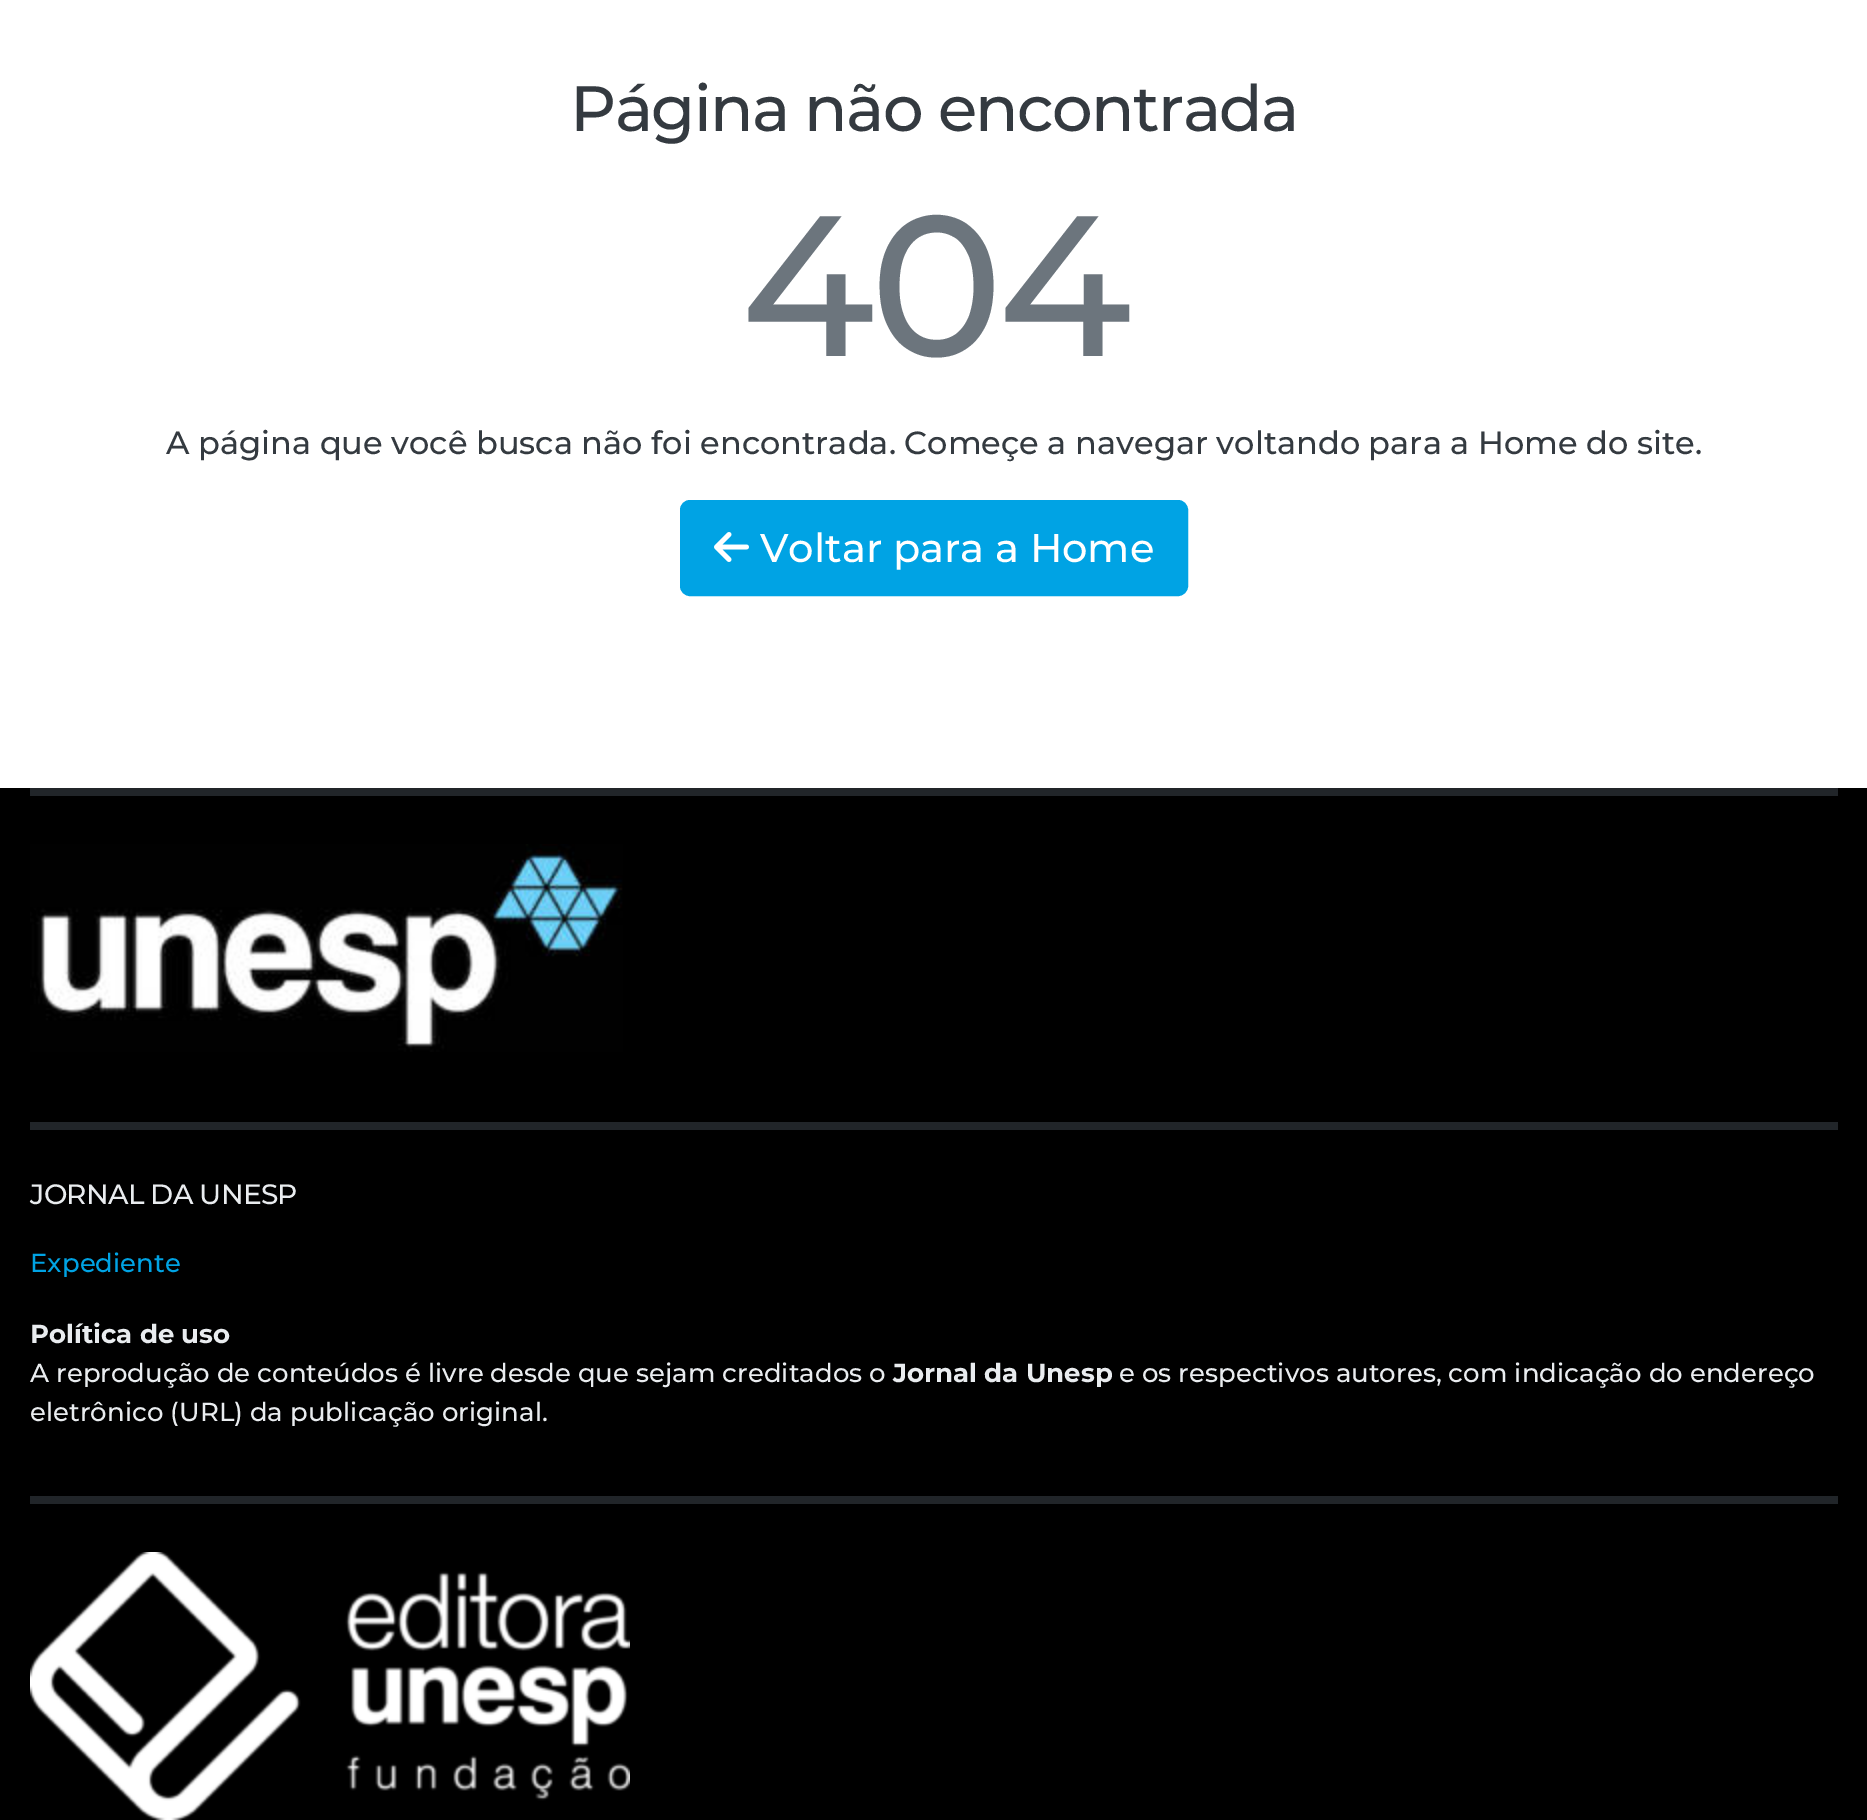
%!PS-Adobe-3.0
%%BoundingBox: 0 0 1867 1820
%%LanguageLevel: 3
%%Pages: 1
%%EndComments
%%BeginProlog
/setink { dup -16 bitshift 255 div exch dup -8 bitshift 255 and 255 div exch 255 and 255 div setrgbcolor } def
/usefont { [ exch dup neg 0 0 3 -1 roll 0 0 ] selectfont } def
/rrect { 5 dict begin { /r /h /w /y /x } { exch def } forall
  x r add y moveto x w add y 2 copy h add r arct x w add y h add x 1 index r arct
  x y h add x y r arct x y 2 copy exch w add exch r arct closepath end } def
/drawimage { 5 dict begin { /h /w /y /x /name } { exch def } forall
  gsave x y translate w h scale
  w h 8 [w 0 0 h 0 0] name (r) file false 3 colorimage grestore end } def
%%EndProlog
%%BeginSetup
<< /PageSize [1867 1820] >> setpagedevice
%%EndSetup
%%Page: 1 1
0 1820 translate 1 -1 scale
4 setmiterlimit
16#FFFFFF setink
0 0 1867 1820 rectfill
/Montserrat-Medium 64 usefont
16#343A40 setink
570 131 moveto -1.6 0 (Página não encontrada) ashow
/Montserrat-Medium 200 usefont
16#6C757D setink
741 356 moveto -5 0 (404) ashow
/Montserrat-Medium 32 usefont
16#343A40 setink
166 454 moveto (A página que você busca não foi encontrada. Começe a navegar voltando para a Home do site.) show
16#00A3E4 setink
681 501 506 94 9 rrect gsave fill grestore
2 setlinewidth
stroke
(img1.raw) 714 532 35 30 drawimage
/Montserrat-Medium 40 usefont
16#FFFFFF setink
760 562 moveto (Voltar para a Home) show
16#000000 setink
0 788 1867 1032 rectfill
16#212529 setink
30 788 1808 8 rectfill
(img2.raw) 30 844 593 208 drawimage
30 1122 1808 8 rectfill
/Montserrat-Medium 28 usefont
16#E9ECEF setink
30 1204 moveto -0.75 0 (JORNAL DA UNESP) ashow
/Montserrat-Medium 26 usefont
16#00A3E4 setink
30 1272 moveto (Expediente) show
/Montserrat-Bold 26 usefont
16#E9ECEF setink
30 1343 moveto (Política de uso) show
/Montserrat-Medium 26 usefont
30 1382 moveto (A reprodução de conteúdos é livre desde que sejam creditados o) show
/Montserrat-Bold 26 usefont
893 1382 moveto (Jornal da Unesp) show
/Montserrat-Medium 26 usefont
1119 1382 moveto (e os respectivos autores, com indicação do endereço) show
30 1421 moveto (eletrônico \(URL\) da publicação original.) show
16#212529 setink
30 1496 1808 8 rectfill
(img3.raw) 30 1552 600 268 drawimage
showpage
%%EOF
